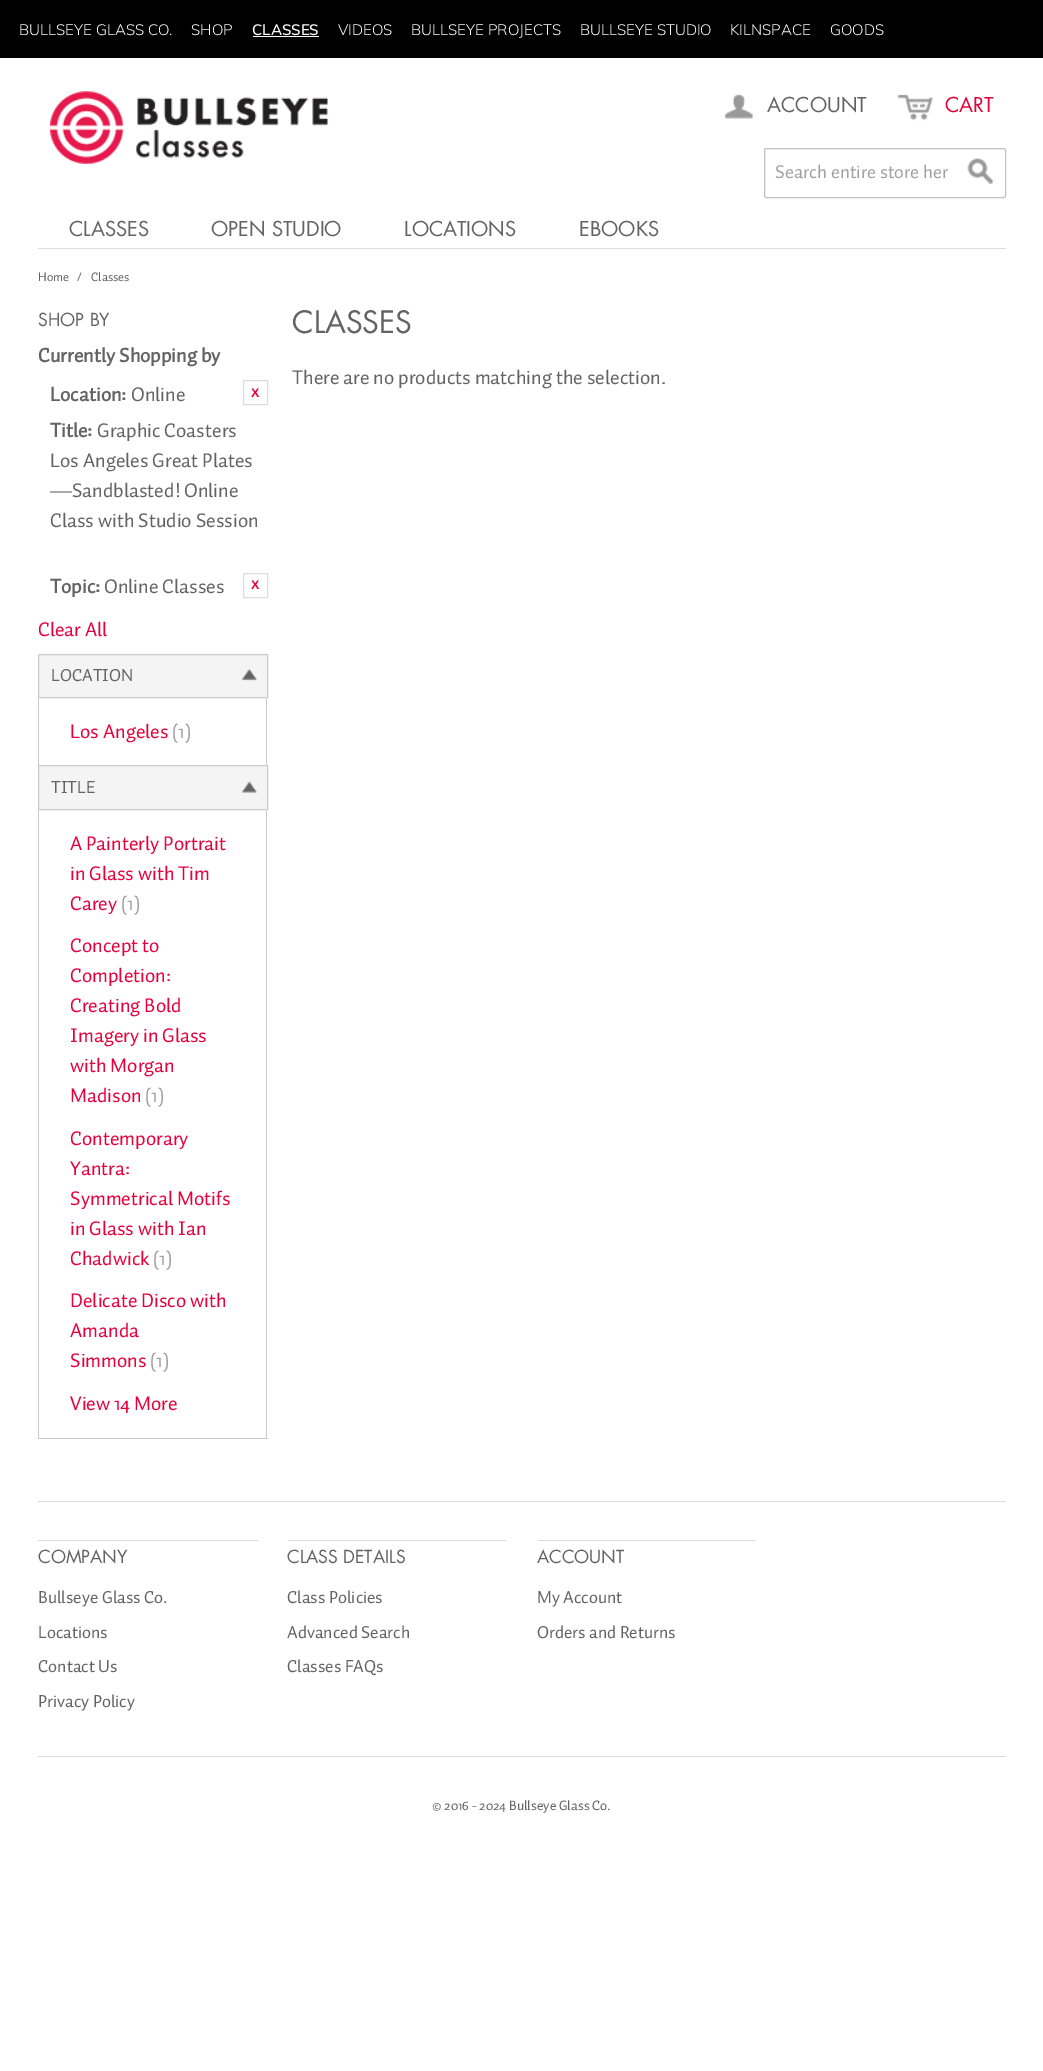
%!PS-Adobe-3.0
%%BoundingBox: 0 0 1043 2071
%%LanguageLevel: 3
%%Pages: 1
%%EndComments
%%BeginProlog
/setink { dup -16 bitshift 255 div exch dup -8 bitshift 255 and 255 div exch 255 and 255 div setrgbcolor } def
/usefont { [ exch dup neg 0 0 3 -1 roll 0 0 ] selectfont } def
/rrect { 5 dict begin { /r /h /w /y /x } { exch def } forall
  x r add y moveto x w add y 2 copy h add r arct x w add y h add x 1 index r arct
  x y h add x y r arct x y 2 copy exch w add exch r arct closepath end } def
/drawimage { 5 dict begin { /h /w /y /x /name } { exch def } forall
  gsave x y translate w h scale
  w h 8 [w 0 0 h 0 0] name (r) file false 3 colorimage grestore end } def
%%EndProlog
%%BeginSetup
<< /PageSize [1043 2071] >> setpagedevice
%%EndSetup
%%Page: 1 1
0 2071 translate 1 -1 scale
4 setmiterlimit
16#FFFFFF setink
0 0 1043 2071 rectfill
16#000000 setink
0 0 1043 58 rectfill
/Muli-Light 15 usefont
16#FFFFFF setink
19 35 moveto (BULLSEYE GLASS CO.) show
191 35 moveto (SHOP) show
/Muli-SemiBold 15 usefont
252 35 moveto (CLASSES) show
253 36 66 1 rectfill
/Muli-Light 15 usefont
[
    [(VIDEOS) 338 35]
    [(BULLSEYE PROJECTS) 411 35]
    [(BULLSEYE STUDIO) 580 35]
    [(KILNSPACE) 730 35]
    [(GOODS) 830 35]
] { aload pop moveto show } forall
(img1.raw) 50 91 278 73 drawimage
(img2.raw) 725 94 29 25 drawimage
/Futura-Regular 20 usefont
16#636363 setink
767 112 moveto (ACCOUNT) show
(img3.raw) 897 94 36 27 drawimage
16#E60036 setink
945 112 moveto (CART) show
16#C0C0C0 setink
764.5 148.5 241 49 2 rrect stroke
/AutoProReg-Regular 18.75 usefont
16#A0A0A0 setink
775 178 moveto (Search entire store her) show
(img4.raw) 967 158 27 26 drawimage
16#DDDDDD setink
38 248 968 1 rectfill
/Futura-Regular 20 usefont
16#636363 setink
[
    [(CLASSES) 69 236]
    [(OPEN STUDIO) 211 236]
    [(LOCATIONS) 404 236]
    [(EBOOKS) 579 236]
] { aload pop moveto show } forall
/AutoProReg-Regular 12.5 usefont
[
    [(Home) 38 281]
    [(/) 77 281]
    [(Classes) 91 281]
] { aload pop moveto show } forall
/Futura-Regular 17.5 usefont
38 326 moveto (SHOP BY) show
/AutoProReg-Bold 20 usefont
38 362 moveto (Currently Shopping by) show
50 401 moveto (Location:) show
/AutoProReg-Regular 20 usefont
131 401 moveto (Online) show
16#DDDDDD setink
243.5 380.5 24 24 rectstroke
/LiberationSans-Bold 12.5 usefont
16#E60036 setink
251 397 moveto (X) show
/AutoProReg-Bold 20 usefont
16#636363 setink
50 437 moveto (Title:) show
/AutoProReg-Regular 20 usefont
[
    [(Graphic Coasters) 97 437]
    [(Los Angeles Great Plates) 50 467]
    [(—Sandblasted! Online) 50 497]
    [(Class with Studio Session) 50 527]
] { aload pop moveto show } forall
/AutoProReg-Bold 20 usefont
50 593 moveto (Topic:) show
/AutoProReg-Regular 20 usefont
104 593 moveto (Online Classes) show
16#DDDDDD setink
243.5 573.5 24 24 rectstroke
/LiberationSans-Bold 12.5 usefont
16#E60036 setink
251 589 moveto (X) show
/AutoProReg-Regular 20 usefont
16#E6003C setink
38 636 moveto (Clear All) show
16#F4F4F4 setink
39 655 228 42 rectfill
(img5.raw) 241 668 17 13 drawimage
16#CCCCCC setink
38.5 654.5 229 43 rectstroke
/AutoProReg-Regular 17.5 usefont
16#636363 setink
51 681 moveto (LOCATION) show
16#CCCCCC setink
266 698 1 67 rectfill
38 698 1 67 rectfill
/AutoProReg-Regular 20 usefont
16#E6003C setink
70 738 moveto (Los Angeles) show
16#A0A0A0 setink
172 738 moveto (\(1\)) show
16#F4F4F4 setink
39 766 228 43 rectfill
(img6.raw) 241 781 16 12 drawimage
16#CCCCCC setink
38.5 765.5 229 44 rectstroke
/AutoProReg-Regular 17.5 usefont
16#636363 setink
51 793 moveto (TITLE) show
[
    [266 810 1 629 16#CCCCCC]
    [38 1438 230 1 16#CCCCCC]
    [38 810 1 629 16#CCCCCC]
] { aload pop setink rectfill } forall
/AutoProReg-Regular 20 usefont
16#E6003C setink
[
    [(A Painterly Portrait) 70 850]
    [(in Glass with Tim) 70 880]
    [(Carey) 70 910]
] { aload pop moveto show } forall
16#A0A0A0 setink
121 910 moveto (\(1\)) show
16#E6003C setink
[
    [(Concept to) 70 952]
    [(Completion:) 70 982]
    [(Creating Bold) 70 1012]
    [(Imagery in Glass) 70 1042]
    [(with Morgan) 70 1072]
    [(Madison) 70 1102]
] { aload pop moveto show } forall
16#A0A0A0 setink
145 1102 moveto (\(1\)) show
16#E6003C setink
[
    [(Contemporary) 70 1145]
    [(Yantra:) 70 1175]
    [(Symmetrical Motifs) 70 1205]
    [(in Glass with Ian) 70 1235]
    [(Chadwick) 70 1265]
] { aload pop moveto show } forall
16#A0A0A0 setink
153 1265 moveto (\(1\)) show
16#E6003C setink
[
    [(Delicate Disco with) 70 1307]
    [(Amanda) 70 1337]
    [(Simmons) 70 1367]
] { aload pop moveto show } forall
16#A0A0A0 setink
150 1367 moveto (\(1\)) show
16#E6003C setink
70 1410 moveto (View 14 More) show
/Futura-Regular 30 usefont
16#636363 setink
292 333 moveto (CLASSES) show
/AutoProReg-Regular 20 usefont
292 384 moveto (There are no products matching the selection.) show
16#DDDDDD setink
38 1501 968 1 rectfill
38 1540 220 1 rectfill
/Futura-Regular 17.5 usefont
16#636363 setink
38 1563 moveto (COMPANY) show
/AutoProReg-Regular 17.5 usefont
[
    [(Bullseye Glass Co.) 38 1603]
    [(Locations) 38 1638]
    [(Contact Us) 38 1672]
    [(Privacy Policy) 38 1707]
] { aload pop moveto show } forall
16#DDDDDD setink
288 1540 218 1 rectfill
/Futura-Regular 17.5 usefont
16#636363 setink
287 1563 moveto (CLASS DETAILS) show
/AutoProReg-Regular 17.5 usefont
[
    [(Class Policies) 287 1603]
    [(Advanced Search) 287 1638]
    [(Classes FAQs) 287 1672]
] { aload pop moveto show } forall
16#DDDDDD setink
538 1540 218 1 rectfill
/Futura-Regular 17.5 usefont
16#636363 setink
537 1563 moveto (ACCOUNT) show
/AutoProReg-Regular 17.5 usefont
537 1603 moveto (My Account) show
537 1638 moveto (Orders and Returns) show
16#DDDDDD setink
38 1756 968 1 rectfill
/AutoProReg-Regular 13.75 usefont
16#636363 setink
432 1810 moveto (© 2016 - 2024 Bullseye Glass Co.) show
showpage
%%EOF
